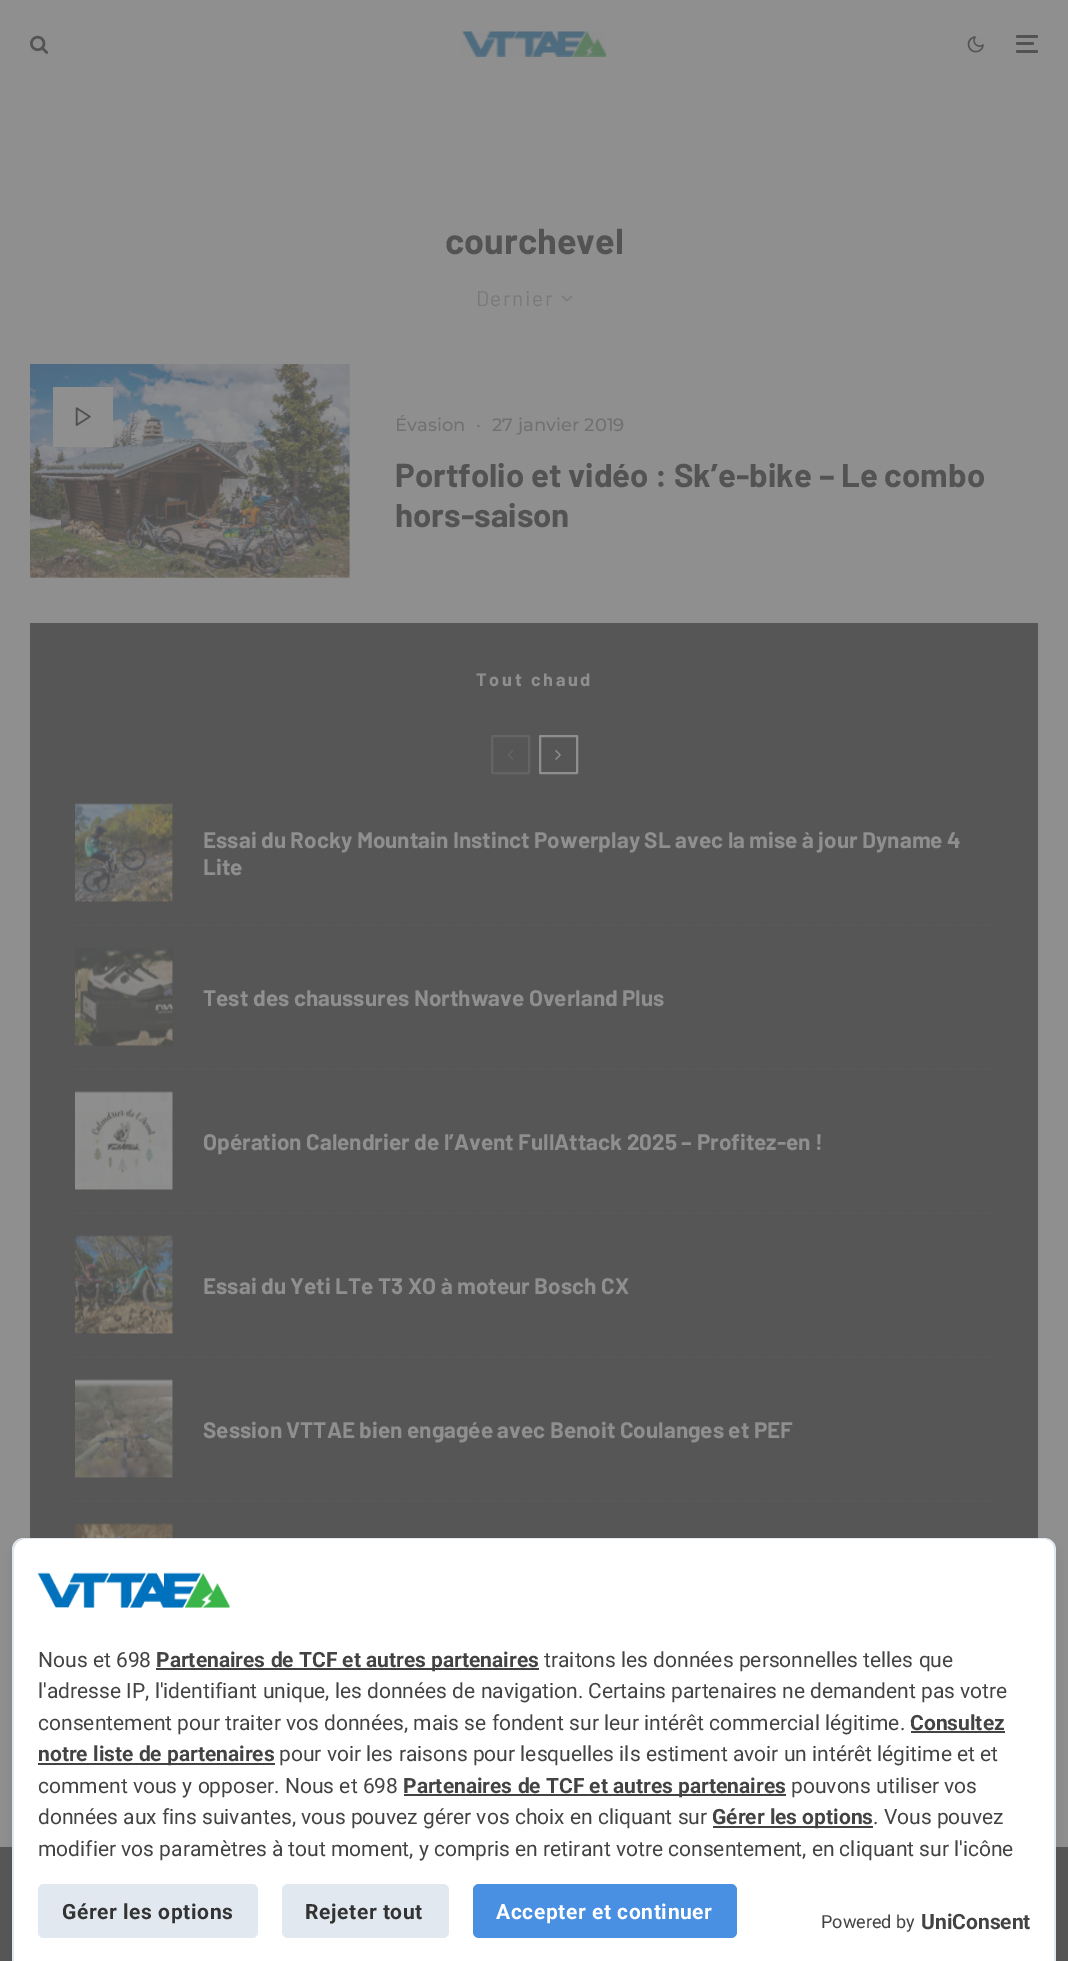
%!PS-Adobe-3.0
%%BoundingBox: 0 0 1068 1961
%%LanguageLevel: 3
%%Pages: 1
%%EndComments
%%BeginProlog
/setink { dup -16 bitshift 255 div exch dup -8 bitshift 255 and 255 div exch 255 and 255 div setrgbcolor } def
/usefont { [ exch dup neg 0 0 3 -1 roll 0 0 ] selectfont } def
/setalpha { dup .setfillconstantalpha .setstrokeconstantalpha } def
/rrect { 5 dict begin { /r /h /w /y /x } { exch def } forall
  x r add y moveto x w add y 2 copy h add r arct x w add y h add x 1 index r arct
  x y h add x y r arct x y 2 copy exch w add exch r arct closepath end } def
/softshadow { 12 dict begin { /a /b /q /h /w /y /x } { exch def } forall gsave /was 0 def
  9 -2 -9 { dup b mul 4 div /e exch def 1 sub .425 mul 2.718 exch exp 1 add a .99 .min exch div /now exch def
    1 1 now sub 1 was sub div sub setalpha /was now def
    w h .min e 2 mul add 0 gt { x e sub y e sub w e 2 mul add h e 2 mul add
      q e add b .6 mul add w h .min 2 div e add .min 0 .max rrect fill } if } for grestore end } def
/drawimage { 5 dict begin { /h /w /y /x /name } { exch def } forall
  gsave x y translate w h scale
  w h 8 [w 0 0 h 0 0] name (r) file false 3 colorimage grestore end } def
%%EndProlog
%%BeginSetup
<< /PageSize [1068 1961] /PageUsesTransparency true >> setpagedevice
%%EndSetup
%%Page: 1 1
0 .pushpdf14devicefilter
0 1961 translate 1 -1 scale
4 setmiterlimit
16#8F8F8F setink
0 0 1068 1961 rectfill
(img1.raw) 30 35 19 19 drawimage
(img2.raw) 462 31 144 26 drawimage
(img3.raw) 967 36 17 17 drawimage
16#535353 setink
1016 42 18 3 1.5 rrect fill
1016 35 22 3 1.5 rrect fill
1016 50 22 3 1.5 rrect fill
/Barlow-Bold 36 usefont
445 254 moveto (courchevel) show
/Barlow-Regular 21 usefont
16#797979 setink
476 306 moveto 1.5 0 (Dernier) ashow
(img4.raw) 561 295 12 7 drawimage
16#8A8A8A setink
30 365 320 213 rectfill
(img5.raw) 30 364 320 214 drawimage
16#8F8F8F setink
53 387 60 60 rectfill
(img6.raw) 75 407 16 19 drawimage
/Montserrat-Medium 18 usefont
16#717171 setink
[
    [(Évasion) 395 431]
    [(·) 476 431]
    [(27 janvier 2019) 492 431]
] { aload pop moveto show } forall
/Barlow-Bold 33 usefont
16#535353 setink
395 487 moveto (Portfolio et vidéo : Sk’e-bike – Le combo) show
395 527 moveto (hors-saison) show
16#565656 setink
30 623 1008 915 rectfill
/Barlow-Bold 18 usefont
16#8F8F8F setink
476 686 moveto 2.75 0 (Tout chaud) ashow
16#646464 setink
2 setlinewidth
492 736 37 37 0.5 rrect stroke
(img7.raw) 507 750 7 10 drawimage
16#8F8F8F setink
540 736 37 37 0.5 rrect stroke
(img8.raw) 555 750 6 10 drawimage
16#5A5A5A setink
1.5 setlinewidth
[1.5 1.5] 0 setdash
75 925 moveto 993 925 lineto stroke
16#525252 setink
75 804 98 98 rectfill
(img9.raw) 75 803 98 99 drawimage
/Barlow-Bold 22.5 usefont
16#8F8F8F setink
203 848 moveto (Essai du Rocky Mountain Instinct Powerplay SL avec la mise à jour Dyname 4) show
203 875 moveto (Lite) show
16#5A5A5A setink
75 1069 moveto 993 1069 lineto stroke
16#525252 setink
75 948 98 98 rectfill
(img10.raw) 75 947 98 99 drawimage
16#8F8F8F setink
203 1006 moveto (Test des chaussures Northwave Overland Plus) show
16#5A5A5A setink
75 1213 moveto 993 1213 lineto stroke
16#525252 setink
75 1092 98 98 rectfill
(img11.raw) 75 1091 98 99 drawimage
16#8F8F8F setink
203 1150 moveto (Opération Calendrier de l’Avent FullAttack 2025 – Profitez-en !) show
16#5A5A5A setink
75 1357 moveto 993 1357 lineto stroke
16#525252 setink
75 1236 98 98 rectfill
(img12.raw) 75 1235 98 99 drawimage
16#8F8F8F setink
203 1294 moveto (Essai du Yeti LTe T3 XO à moteur Bosch CX) show
16#5A5A5A setink
75 1501 moveto 993 1501 lineto stroke
16#525252 setink
75 1380 98 98 rectfill
(img13.raw) 75 1379 98 99 drawimage
16#8F8F8F setink
203 1438 moveto (Session VTTAE bien engagée avec Benoit Coulanges et PEF) show
16#525252 setink
75 1524 98 14 rectfill
(img14.raw) 75 1523 98 15 drawimage
16#565656 setink
0 1847 1068 114 rectfill
16#000000 setink
14 1545 1041 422 11 4.5 0.1 softshadow
16#FFFFFF setink
25 1539 moveto 1044 1539 lineto 1050 1539 1055 1544 1055 1550 curveto 1055 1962 lineto 14 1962 lineto 14 1550 lineto 14 1544 19 1539 25 1539 curveto closepath fill
16#E2E8F0 setink
24 1538 moveto 1044 1538 lineto 1051 1538 1056 1543 1056 1550 curveto 1056 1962 lineto 12 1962 lineto 12 1550 lineto 12 1543 17 1538 24 1538 curveto closepath 24 1539 moveto 1044 1539 lineto 1050 1539 1054 1544 1054 1550 curveto 1054 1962 lineto 14 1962 lineto 14 1550 lineto 14 1544 18 1539 24 1539 curveto closepath eofill
(img15.raw) 37 1572 193 36 drawimage
/Roboto-Regular 21 usefont
16#434343 setink
38 1667 moveto (Nous et 698) show
156 1668 383 2 rectfill
/Roboto-Bold 21 usefont
156 1667 moveto (Partenaires de TCF et autres partenaires) show
/Roboto-Regular 21 usefont
[
    [(traitons les données personnelles telles que) 544 1667]
    [(l'adresse IP, l'identifiant unique, les données de navigation. Certains partenaires ne demandent pas votre) 38 1698]
    [(consentement pour traiter vos données, mais se fondent sur leur intérêt commercial légitime.) 38 1730]
] { aload pop moveto show } forall
/Roboto-Bold 21 usefont
910 1730 moveto (Consultez) show
911 1731 94 2 rectfill
38 1763 237 2 rectfill
38 1761 moveto (notre liste de partenaires) show
/Roboto-Regular 21 usefont
279 1761 moveto (pour voir les raisons pour lesquelles ils estiment avoir un intérêt légitime et et) show
38 1793 moveto (comment vous y opposer. Nous et 698) show
404 1794 382 2 rectfill
/Roboto-Bold 21 usefont
403 1793 moveto (Partenaires de TCF et autres partenaires) show
/Roboto-Regular 21 usefont
791 1793 moveto (pouvons utiliser vos) show
38 1824 moveto (données aux fins suivantes, vous pouvez gérer vos choix en cliquant sur) show
713 1826 160 2 rectfill
/Roboto-Bold 21 usefont
712 1824 moveto (Gérer les options) show
/Roboto-Regular 21 usefont
873 1824 moveto (. Vous pouvez) show
38 1856 moveto (modifier vos paramètres à tout moment, y compris en retirant votre consentement, en cliquant sur l'icône) show
16#E2E8F0 setink
38 1884 220 54 6 rrect fill
/Roboto-Bold 21 usefont
16#333333 setink
62 1919 moveto 0.6 0 (Gérer les options) ashow
16#E2E8F0 setink
282 1884 167 54 6 rrect fill
16#333333 setink
305 1919 moveto 0.6 0 (Rejeter tout) ashow
16#4A90E2 setink
473 1884 264 54 6 rrect fill
16#FFFFFF setink
496 1919 moveto 0.6 0 (Accepter et continuer) ashow
/Roboto-Regular 18 usefont
16#434343 setink
821 1928 moveto (Powered by) show
/Roboto-Bold 21 usefont
921 1929 moveto (UniConsent) show
.poppdf14devicefilter showpage
%%EOF
